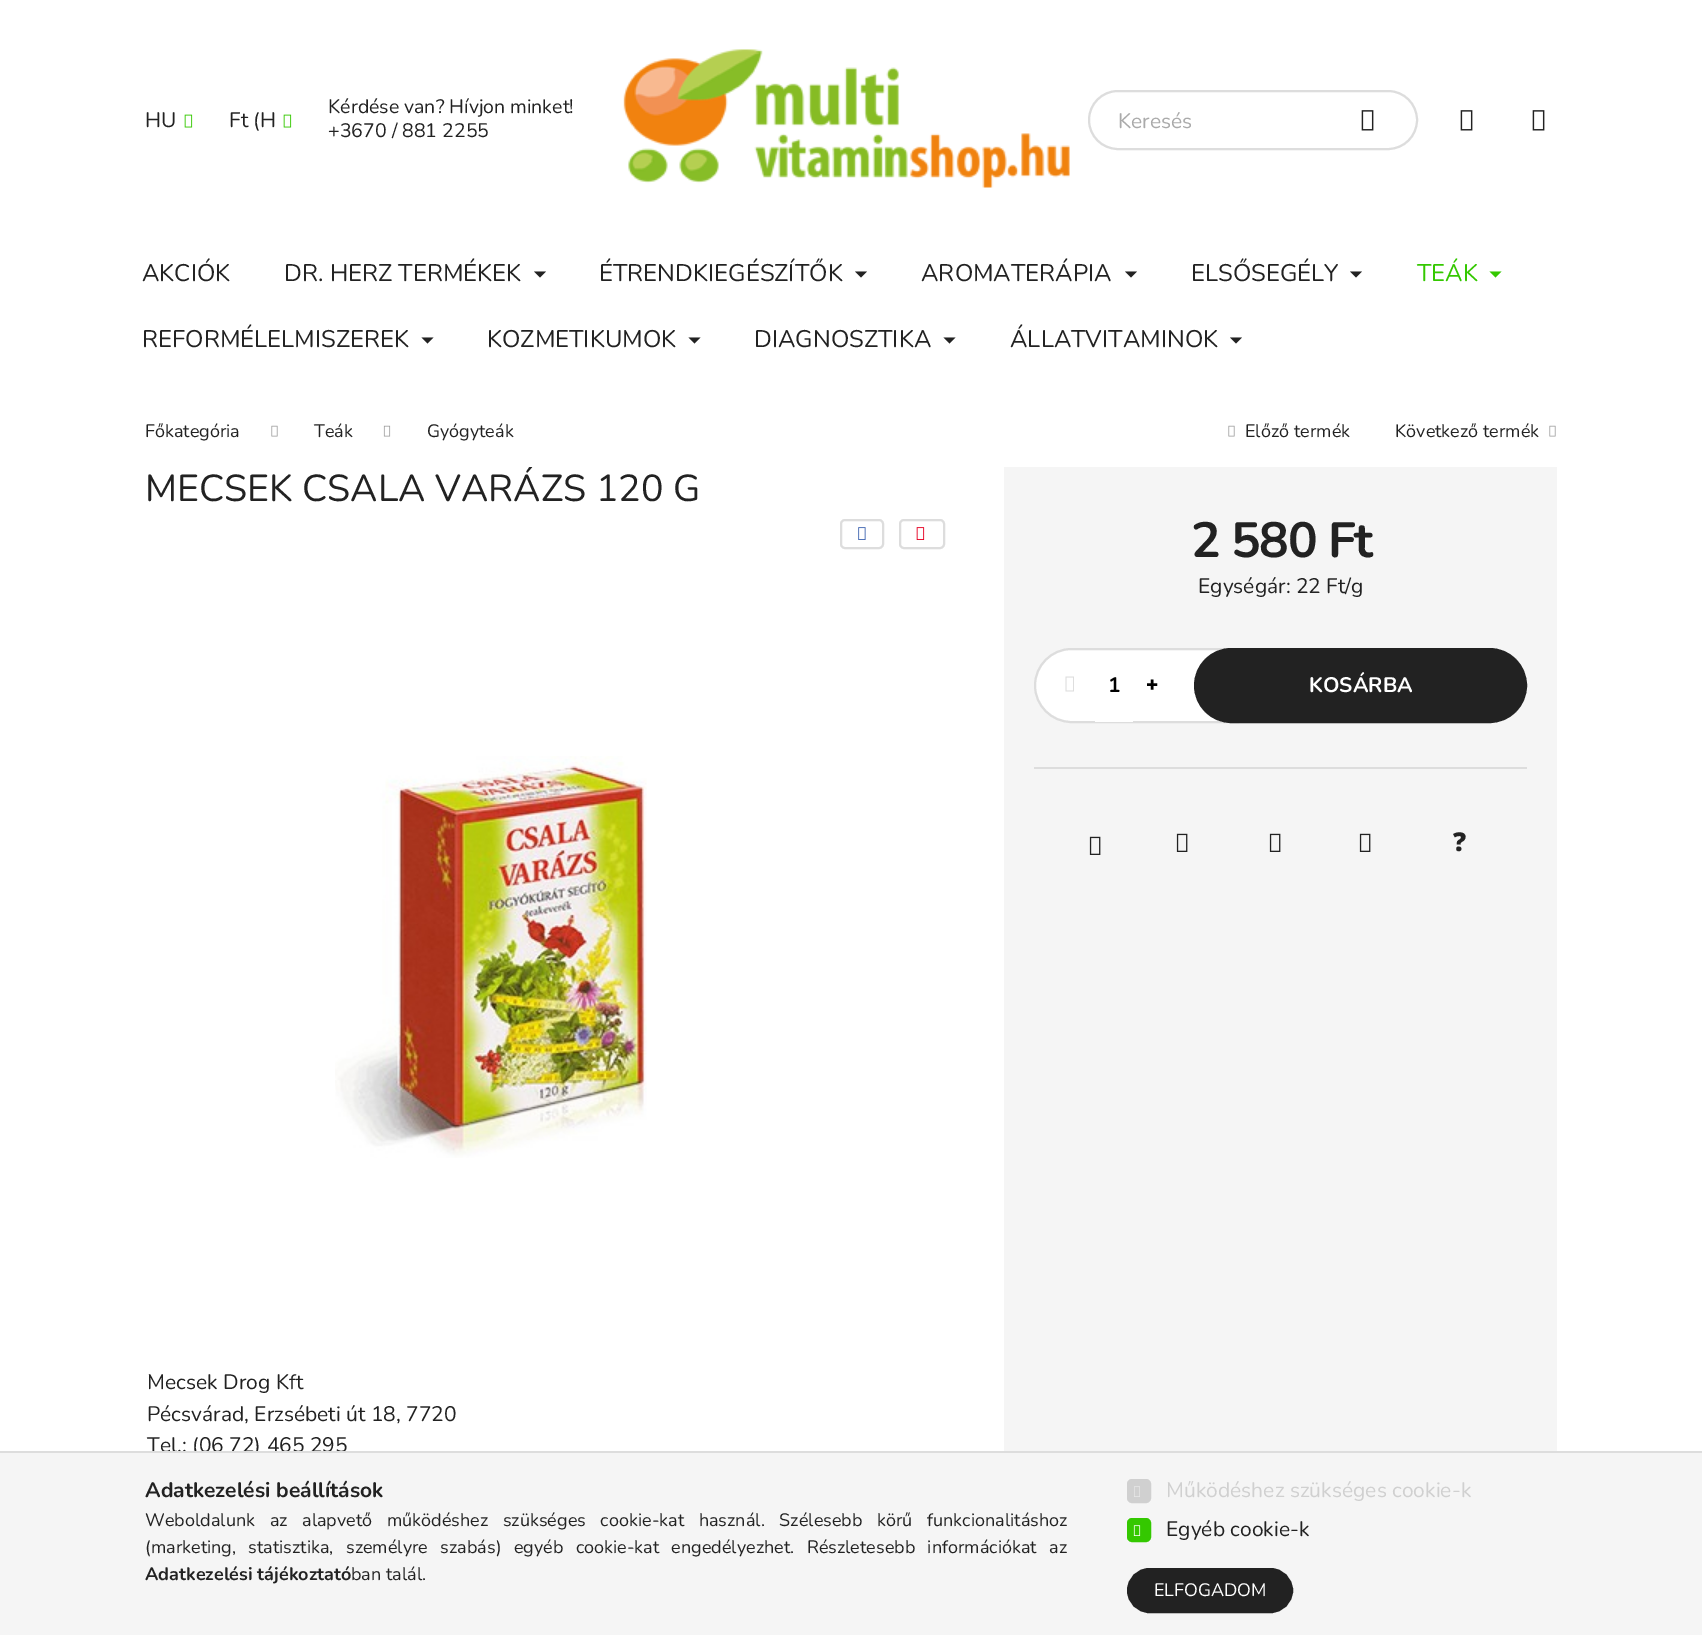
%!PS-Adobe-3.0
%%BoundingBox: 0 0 1702 1635
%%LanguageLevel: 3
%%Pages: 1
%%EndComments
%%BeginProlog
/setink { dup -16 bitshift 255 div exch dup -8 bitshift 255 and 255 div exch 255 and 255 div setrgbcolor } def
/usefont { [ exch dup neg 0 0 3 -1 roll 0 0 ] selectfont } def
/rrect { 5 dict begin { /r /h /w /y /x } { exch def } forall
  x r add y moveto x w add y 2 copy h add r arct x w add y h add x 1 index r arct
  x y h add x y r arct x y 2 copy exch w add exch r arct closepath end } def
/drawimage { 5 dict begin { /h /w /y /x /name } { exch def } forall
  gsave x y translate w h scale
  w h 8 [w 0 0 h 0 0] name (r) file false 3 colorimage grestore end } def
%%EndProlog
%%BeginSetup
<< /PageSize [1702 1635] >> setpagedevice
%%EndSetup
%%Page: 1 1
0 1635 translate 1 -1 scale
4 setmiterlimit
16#FFFFFF setink
0 0 1702 1635 rectfill
/Nunito-Regular 21 usefont
16#222222 setink
145 127 moveto (HU) show
(img1.raw) 184 114 9 14 drawimage
229 127 moveto (Ft \(H) show
(img1.raw) 283 114 9 14 drawimage
/Nunito-Regular 19.5 usefont
328 113 moveto (Kérdése van? Hívjon minket!) show
328 137 moveto (+3670 / 881 2255) show
(img2.raw) 623 49 447 139 drawimage
16#DDDDDD setink
2 setlinewidth
1089 91 328 58 29 rrect stroke
/Nunito-Regular 21 usefont
16#AAAAAA setink
1118 128 moveto (Keresés) show
(img3.raw) 1361 110 13 21 drawimage
(img3.raw) 1460 110 13 21 drawimage
(img3.raw) 1532 110 13 21 drawimage
/Nunito-Regular 24 usefont
16#222222 setink
142 281 moveto (AKCIÓK) show
284 281 moveto (DR. HERZ TERMÉKEK) show
534 271.5 moveto 546 271.5 lineto 540 277.5 lineto closepath fill
599 281 moveto (ÉTRENDKIEGÉSZÍTŐK) show
855 271.5 moveto 867 271.5 lineto 861 277.5 lineto closepath fill
921 281 moveto (AROMATERÁPIA) show
1125 271.5 moveto 1137 271.5 lineto 1131 277.5 lineto closepath fill
1191 281 moveto (ELSŐSEGÉLY) show
1350 271.5 moveto 1362 271.5 lineto 1356 277.5 lineto closepath fill
16#34C800 setink
1417 281 moveto (TEÁK) show
1489.5 271.5 moveto 1501.5 271.5 lineto 1495.5 277.5 lineto closepath fill
16#222222 setink
142 347 moveto (REFORMÉLELMISZEREK) show
421.5 337.5 moveto 433.5 337.5 lineto 427.5 343.5 lineto closepath fill
487 347 moveto (KOZMETIKUMOK) show
688.5 337.5 moveto 700.5 337.5 lineto 694.5 343.5 lineto closepath fill
754 347 moveto (DIAGNOSZTIKA) show
943.5 337.5 moveto 955.5 337.5 lineto 949.5 343.5 lineto closepath fill
1010 347 moveto (ÁLLATVITAMINOK) show
1230 337.5 moveto 1242 337.5 lineto 1236 343.5 lineto closepath fill
/Nunito-Regular 18 usefont
145 437 moveto (Főkategória) show
(img4.raw) 271 425 7 12 drawimage
314 437 moveto (Teák) show
(img5.raw) 383 425 8 12 drawimage
427 437 moveto (Gyógyteák) show
(img4.raw) 1228 425 7 12 drawimage
1245 437 moveto (Előző termék) show
1395 437 moveto (Következő termék) show
(img4.raw) 1549 425 7 12 drawimage
gsave
146 467 555 45 rectclip
/Nunito-Regular 37.5 usefont
145 501 moveto (MECSEK CSALA VARÁZS 120 G) show
grestore
16#DDDDDD setink
841 520 42 28 4 rrect stroke
(img6.raw) 858 527 8 13 drawimage
900 520 44 28 4 rrect stroke
(img7.raw) 916 527 9 13 drawimage
(img8.raw) 335 756 312 402 drawimage
/Nunito-Regular 21 usefont
16#222222 setink
[
    [(Mecsek Drog Kft) 147 1389]
    [(Pécsvárad, Erzsébeti út 18, 7720) 147 1421]
    [(Tel.: \(06 72\) 465 295) 147 1452]
] { aload pop moveto show } forall
16#F5F5F5 setink
1004 467 553 984 rectfill
/Nunito-Bold 49.5 usefont
16#222222 setink
1191 557 moveto -1.5 0 (2 580 Ft) ashow
/Nunito-Regular 21 usefont
1198 593 moveto (Egységár: 22 Ft/g) show
16#FFFFFF setink
1071.5 649 moveto 1238 649 lineto 1238 722 lineto 1071.5 722 lineto 1051.5 722 1035 705.5 1035 685.5 curveto 1035 665.5 1051.5 649 1071.5 649 curveto closepath gsave fill grestore
16#DDDDDD setink
stroke
(img9.raw) 1065 676 9 16 drawimage
16#FFFFFF setink
1095 721 38 1 rectfill
/Nunito-Bold 21 usefont
16#000000 setink
1108 692 moveto (1) show
/NotoSans-Black 21 usefont
1146 692 moveto (+) show
16#222222 setink
1195 649 331 73 36.5 rrect gsave fill grestore
stroke
/Nunito-Bold 21 usefont
16#FFFFFF setink
1309 692 moveto (KOSÁRBA) show
16#DDDDDD setink
1034 767 493 2 rectfill
(img10.raw) 1089 836 12 19 drawimage
(img10.raw) 1176 833 12 19 drawimage
(img10.raw) 1269 833 12 19 drawimage
(img10.raw) 1359 833 12 19 drawimage
/NotoSans-Black 26 usefont
16#222222 setink
1453 851 moveto (?) show
16#F5F5F5 setink
0 1453 1702 182 rectfill
16#DDDDDD setink
0 1451 1702 2 rectfill
/Nunito-Bold 21 usefont
16#222222 setink
145 1497 moveto (Adatkezelési beállítások) show
/Nunito-Regular 18 usefont
145 1526 moveto 10 0 32 (Weboldalunk az alapvető működéshez szükséges cookie-kat használ. Szélesebb körű funkcionalitáshoz) widthshow
145 1553 moveto 7.75 0 32 (\(marketing, statisztika, személyre szabás\) egyéb cookie-kat engedélyezhet. Részletesebb információkat az) widthshow
/Nunito-Bold 18 usefont
145 1580 moveto (Adatkezelési tájékoztató) show
/Nunito-Regular 18 usefont
351 1580 moveto (ban talál.) show
16#D0D0D0 setink
1128 1480 22 22 4 rrect gsave fill grestore
stroke
(img11.raw) 1134 1486 6 11 drawimage
/Nunito-Regular 21 usefont
1166 1497 moveto (Működéshez szükséges cookie-k) show
16#34C800 setink
1128 1519 22 22 4 rrect gsave fill grestore
stroke
(img12.raw) 1133 1525 8 11 drawimage
16#222222 setink
1166 1536 moveto (Egyéb cookie-k) show
1128 1569 164 43 21.5 rrect gsave fill grestore
stroke
/Nunito-Regular 18 usefont
16#FFFFFF setink
1154 1596 moveto (ELFOGADOM) show
showpage
%%EOF
